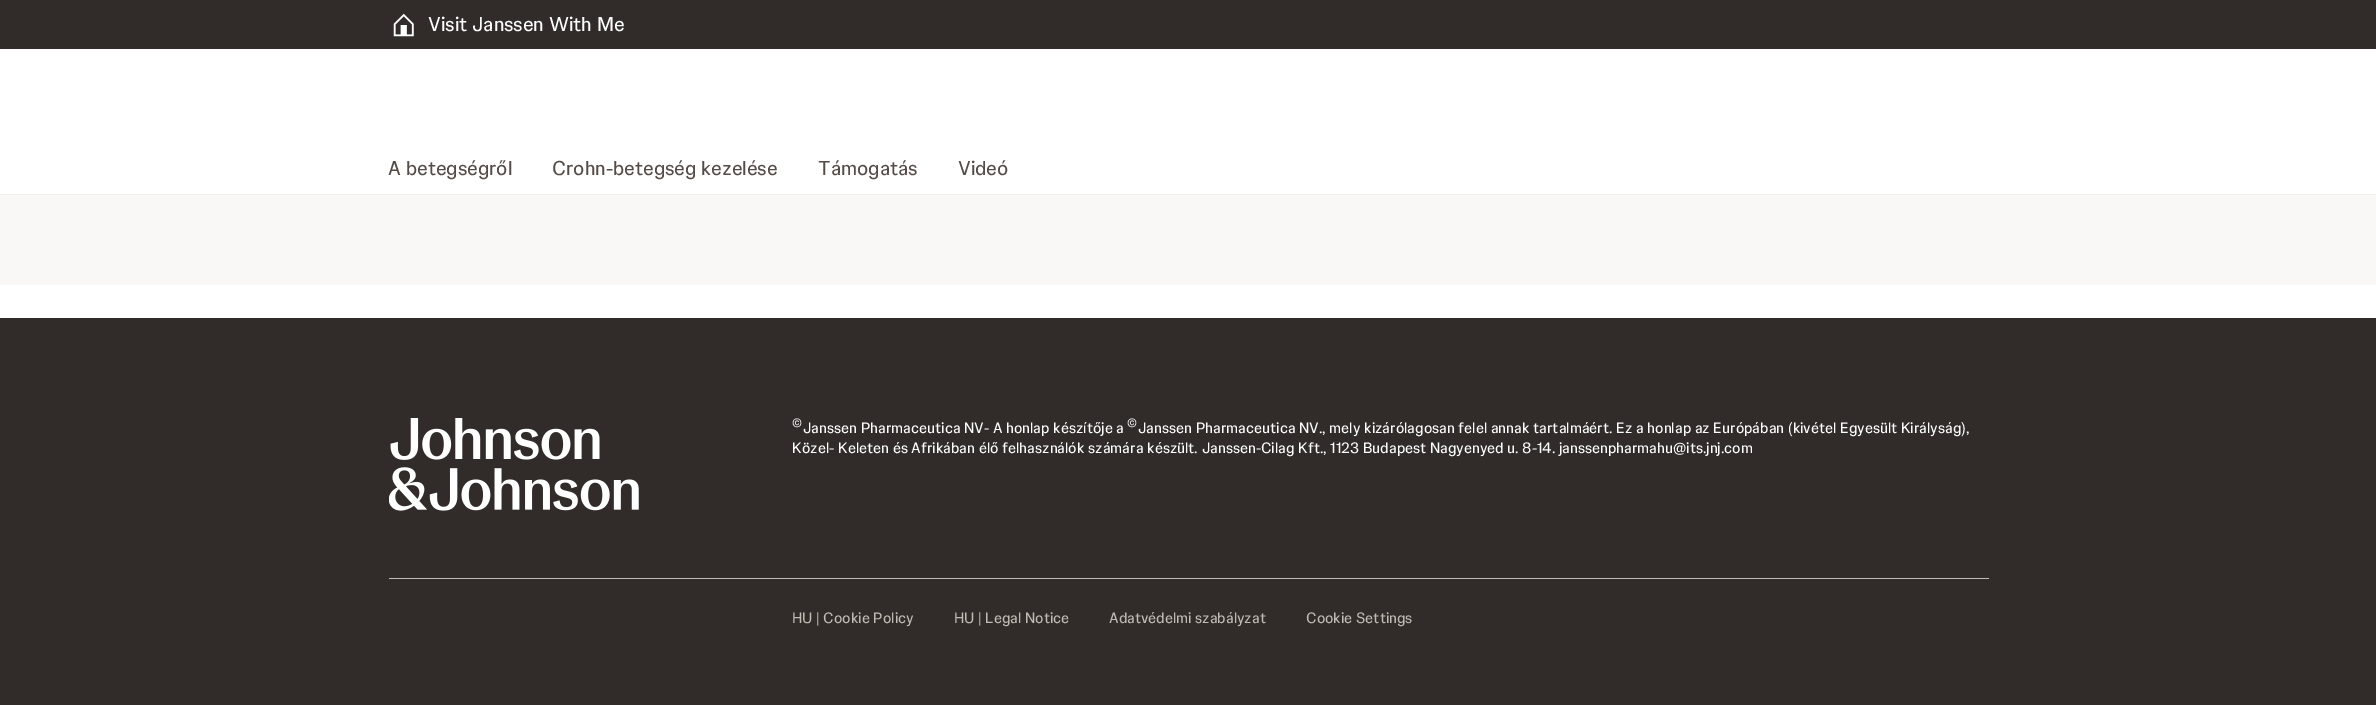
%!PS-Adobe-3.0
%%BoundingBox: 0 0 2376 705
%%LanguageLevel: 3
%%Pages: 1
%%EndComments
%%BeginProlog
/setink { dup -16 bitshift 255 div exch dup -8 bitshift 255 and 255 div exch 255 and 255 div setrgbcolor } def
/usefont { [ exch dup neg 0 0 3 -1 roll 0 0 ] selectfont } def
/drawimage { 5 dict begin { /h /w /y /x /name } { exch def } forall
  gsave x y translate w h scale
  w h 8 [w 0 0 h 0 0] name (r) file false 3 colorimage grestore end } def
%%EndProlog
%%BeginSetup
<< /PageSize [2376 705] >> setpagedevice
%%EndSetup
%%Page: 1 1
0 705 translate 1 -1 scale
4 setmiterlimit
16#FFFFFF setink
0 0 2376 705 rectfill
16#312C2A setink
0 0 2376 49 rectfill
(img1.raw) 393 13 21 24 drawimage
/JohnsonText-Regular 20 usefont
16#FFFFFF setink
428 31 moveto (Visit Janssen With Me) show
16#564C47 setink
[
    [(A betegségről) 388 175]
    [(Crohn-betegség kezelése) 552 175]
    [(Támogatás) 818 175]
    [(Videó) 958 175]
] { aload pop moveto show } forall
[
    [0 194 2376 1 16#F1EFED]
    [0 195 2376 90 16#F9F8F7]
    [0 318 2376 387 16#312C2A]
] { aload pop setink rectfill } forall
(img2.raw) 389 418 250 93 drawimage
/JohnsonText-Regular 12 usefont
16#FFFFFF setink
792 427 moveto (©) show
/JohnsonText-Regular 15 usefont
803 433 moveto (Janssen Pharmaceutica NV- A honlap készítője a) show
/JohnsonText-Regular 12 usefont
1127 427 moveto (©) show
/JohnsonText-Regular 15 usefont
1138 433 moveto (Janssen Pharmaceutica NV., mely kizárólagosan felel annak tartalmáért. Ez a honlap az Európában \(kivétel Egyesült Királyság\),) show
792 453 moveto (Közel- Keleten és Afrikában élő felhasználók számára készült. Janssen-Cilag Kft., 1123 Budapest Nagyenyed u. 8-14. janssenpharmahu@its.jnj.com) show
16#C1BBB3 setink
389 578 1600 1 rectfill
[
    [(HU | Cookie Policy) 792 623]
    [(HU | Legal Notice) 954 623]
    [(Adatvédelmi szabályzat) 1109 623]
    [(Cookie Settings) 1306 623]
] { aload pop moveto show } forall
showpage
%%EOF
